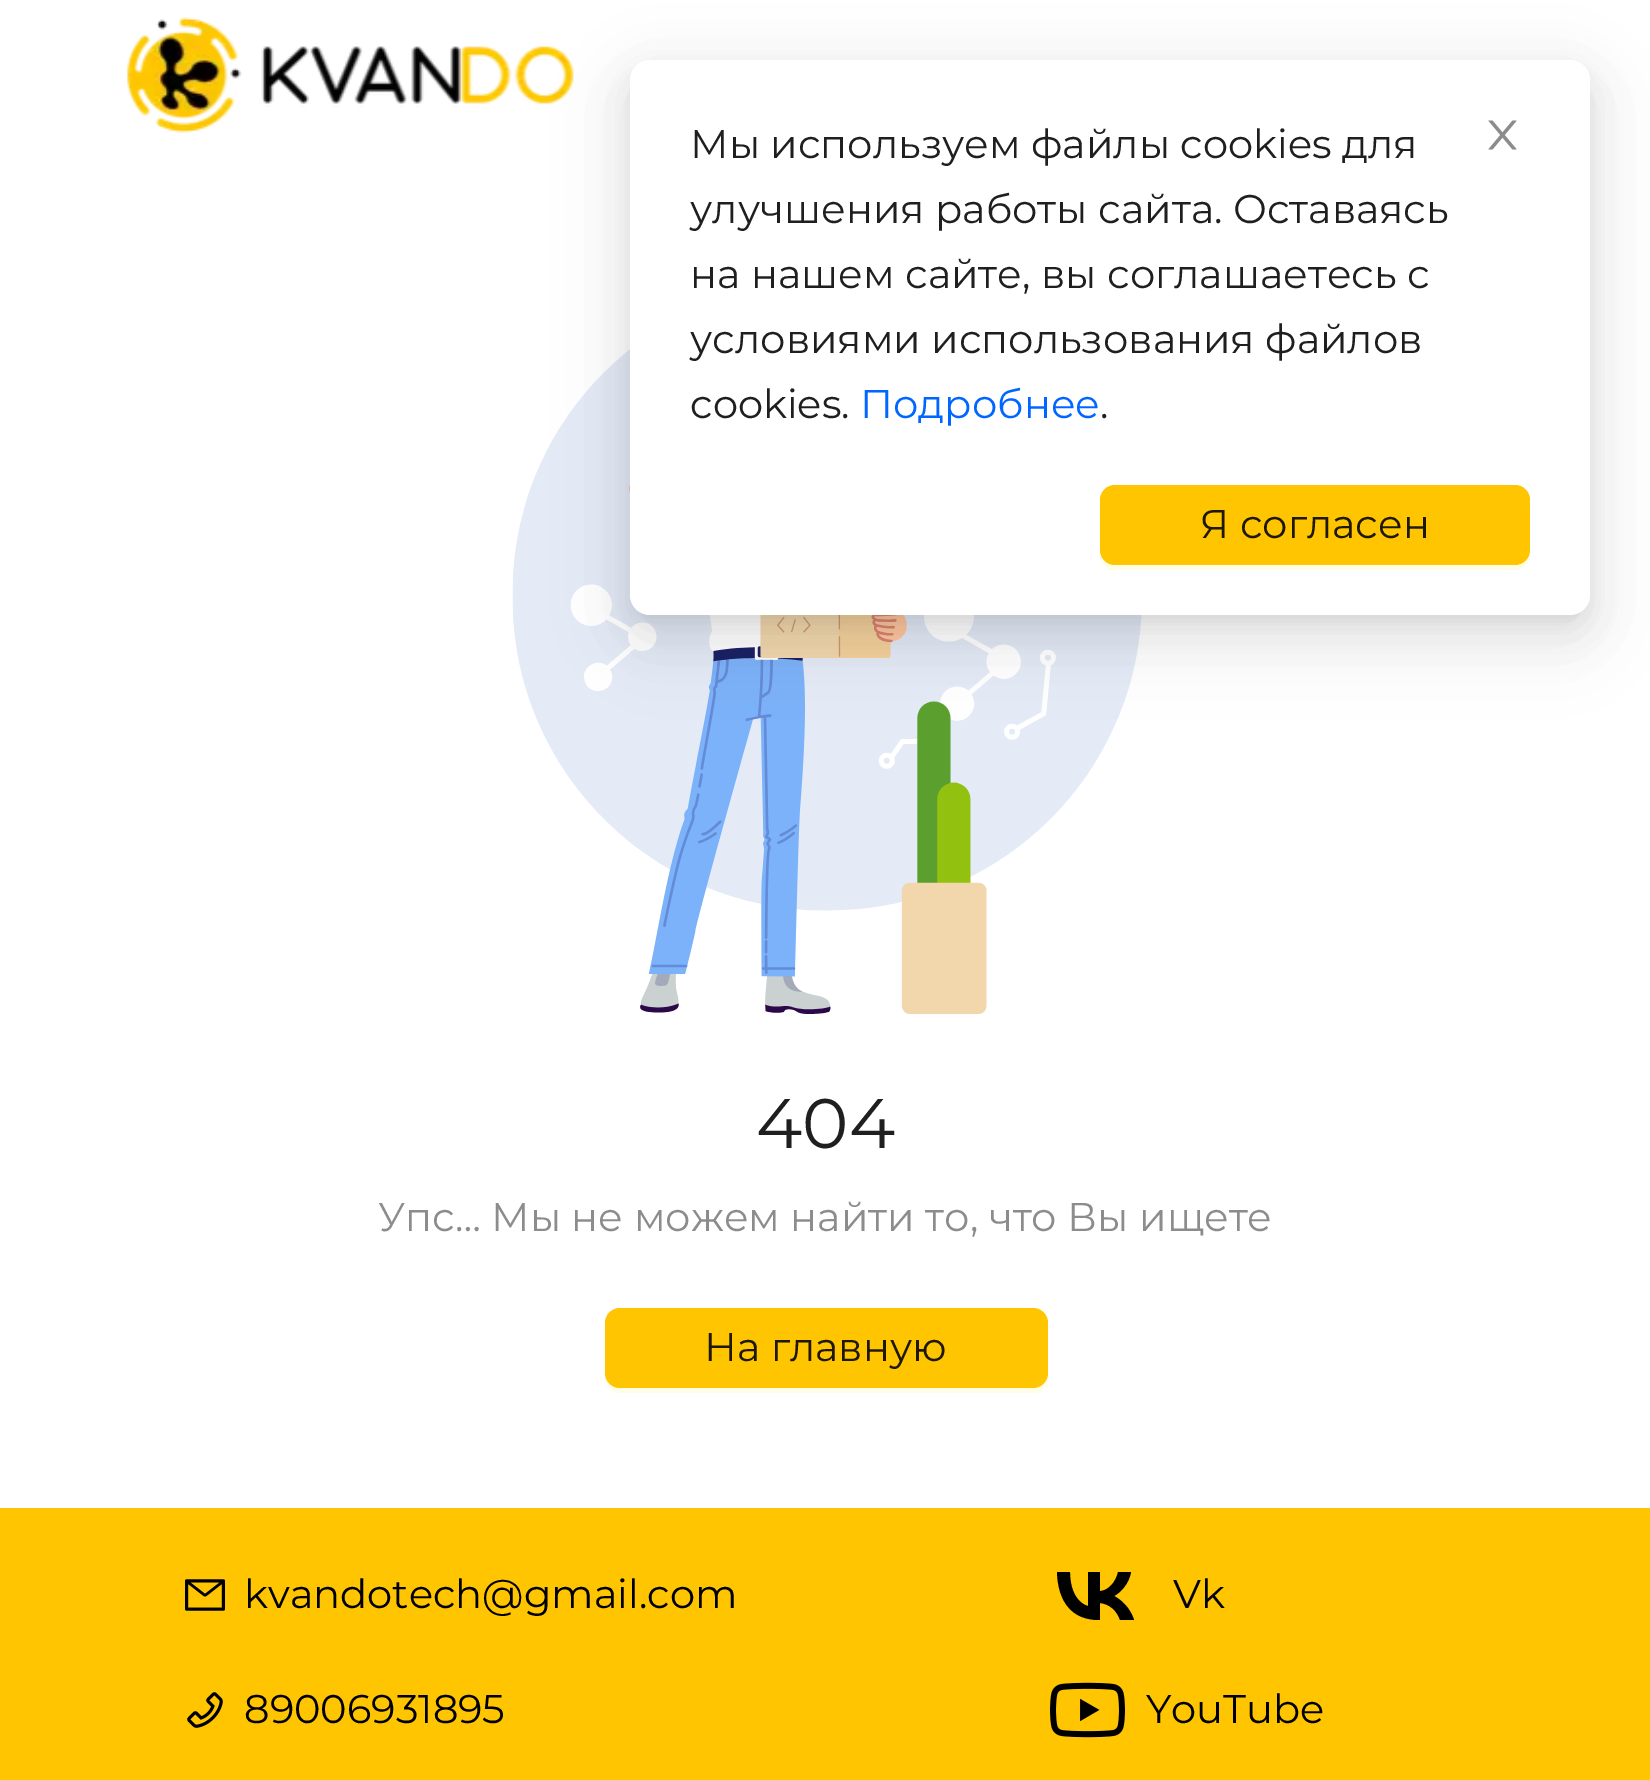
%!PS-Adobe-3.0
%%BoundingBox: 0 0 1650 1780
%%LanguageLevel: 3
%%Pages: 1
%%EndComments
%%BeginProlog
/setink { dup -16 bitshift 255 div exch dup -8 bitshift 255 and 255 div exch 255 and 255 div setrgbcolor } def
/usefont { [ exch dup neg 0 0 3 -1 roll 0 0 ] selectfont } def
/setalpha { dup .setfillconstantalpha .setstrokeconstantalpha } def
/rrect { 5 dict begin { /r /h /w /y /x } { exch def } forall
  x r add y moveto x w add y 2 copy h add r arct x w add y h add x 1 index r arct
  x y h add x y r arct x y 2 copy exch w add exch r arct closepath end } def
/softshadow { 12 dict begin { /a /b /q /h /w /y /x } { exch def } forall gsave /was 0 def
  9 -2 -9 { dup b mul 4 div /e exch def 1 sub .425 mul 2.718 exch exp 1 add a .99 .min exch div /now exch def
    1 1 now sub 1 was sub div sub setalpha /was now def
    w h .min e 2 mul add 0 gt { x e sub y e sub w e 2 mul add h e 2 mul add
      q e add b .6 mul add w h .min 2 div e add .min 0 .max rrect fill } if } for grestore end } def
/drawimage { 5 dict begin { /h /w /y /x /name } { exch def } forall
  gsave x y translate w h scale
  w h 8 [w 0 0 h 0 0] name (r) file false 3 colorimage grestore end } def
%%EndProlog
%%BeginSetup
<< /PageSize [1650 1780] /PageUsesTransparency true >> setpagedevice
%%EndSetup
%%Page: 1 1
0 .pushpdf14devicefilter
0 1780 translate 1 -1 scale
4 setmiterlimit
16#FFFFFF setink
0 0 1650 1780 rectfill
(img2.raw) 126 17 448 116 drawimage
(img3.raw) 512 349 630 665 drawimage
16#000000 setink
610 63 1000 595 40 35 0.05 softshadow
640 78 940 535 10 7.5 0.12 softshadow
630 75 960 555 20 20 0.08 softshadow
16#FFFFFF setink
630 60 960 555 20 rrect fill
/Montserrat-Regular 40 usefont
16#1F1F1F setink
[
    [(Мы используем файлы cookies для) 690 158]
    [(улучшения работы сайта. Оставаясь) 690 223]
    [(на нашем сайте, вы соглашаетесь с) 690 288]
    [(условиями использования файлов) 690 353]
    [(cookies.) 690 418]
] { aload pop moveto show } forall
16#0066FF setink
860 418 moveto (Подробнее) show
16#1F1F1F setink
1100 418 moveto (.) show
16#FFFDE6 setink
1100 550 moveto 1100 555 lineto 1100 563 1107 570 1115 570 curveto 1515 570 lineto 1523 570 1530 563 1530 555 curveto 1530 550 lineto 1530 558 1523 565 1515 565 curveto 1115 565 lineto 1107 565 1100 558 1100 550 curveto closepath fill
16#FFC500 setink
1100 485 430 80 15 rrect fill
16#1F1800 setink
1200 538 moveto (Я согласен) show
(img1.raw) 1488 120 29 30 drawimage
/Montserrat-Regular 70 usefont
16#1F1F1F setink
756 1148 moveto (404) show
/Montserrat-Regular 40 usefont
16#8C8C8C setink
378 1231 moveto (Упс… Мы не можем найти то, что Вы ищете) show
16#FFFDE6 setink
605 1372 moveto 605 1378 lineto 605 1386 612 1393 620 1393 curveto 1033 1393 lineto 1041 1393 1048 1386 1048 1378 curveto 1048 1328 lineto 1048 1324 lineto 1048 1372 lineto 1048 1381 1041 1388 1032 1388 curveto 620 1388 lineto 612 1388 605 1381 605 1372 curveto closepath fill
16#FFC500 setink
605 1308 443 80 15 rrect fill
16#1F1800 setink
704 1361 moveto (На главную) show
16#FFC500 setink
0 1508 1650 272 rectfill
(img4.raw) 185 1579 40 32 drawimage
16#000000 setink
244 1608 moveto (kvandotech@gmail.com) show
(img5.raw) 187 1692 36 36 drawimage
244 1723 moveto (89006931895) show
1099 1620 moveto 1072 1620 1058 1602 1057 1572 curveto 1070 1572 lineto 1070 1594 1080 1604 1088 1606 curveto 1088 1572 lineto 1100 1572 lineto 1100 1591 lineto 1108 1591 1116 1582 1118 1572 curveto 1131 1572 lineto 1129 1584 1120 1593 1114 1596 curveto 1120 1599 1130 1607 1134 1620 curveto 1120 1620 lineto 1117 1611 1110 1604 1100 1603 curveto 1100 1620 lineto closepath fill
1173 1608 moveto (Vk) show
(img6.raw) 1050 1682 75 56 drawimage
1146 1723 moveto (YouTube) show
.poppdf14devicefilter showpage
%%EOF
